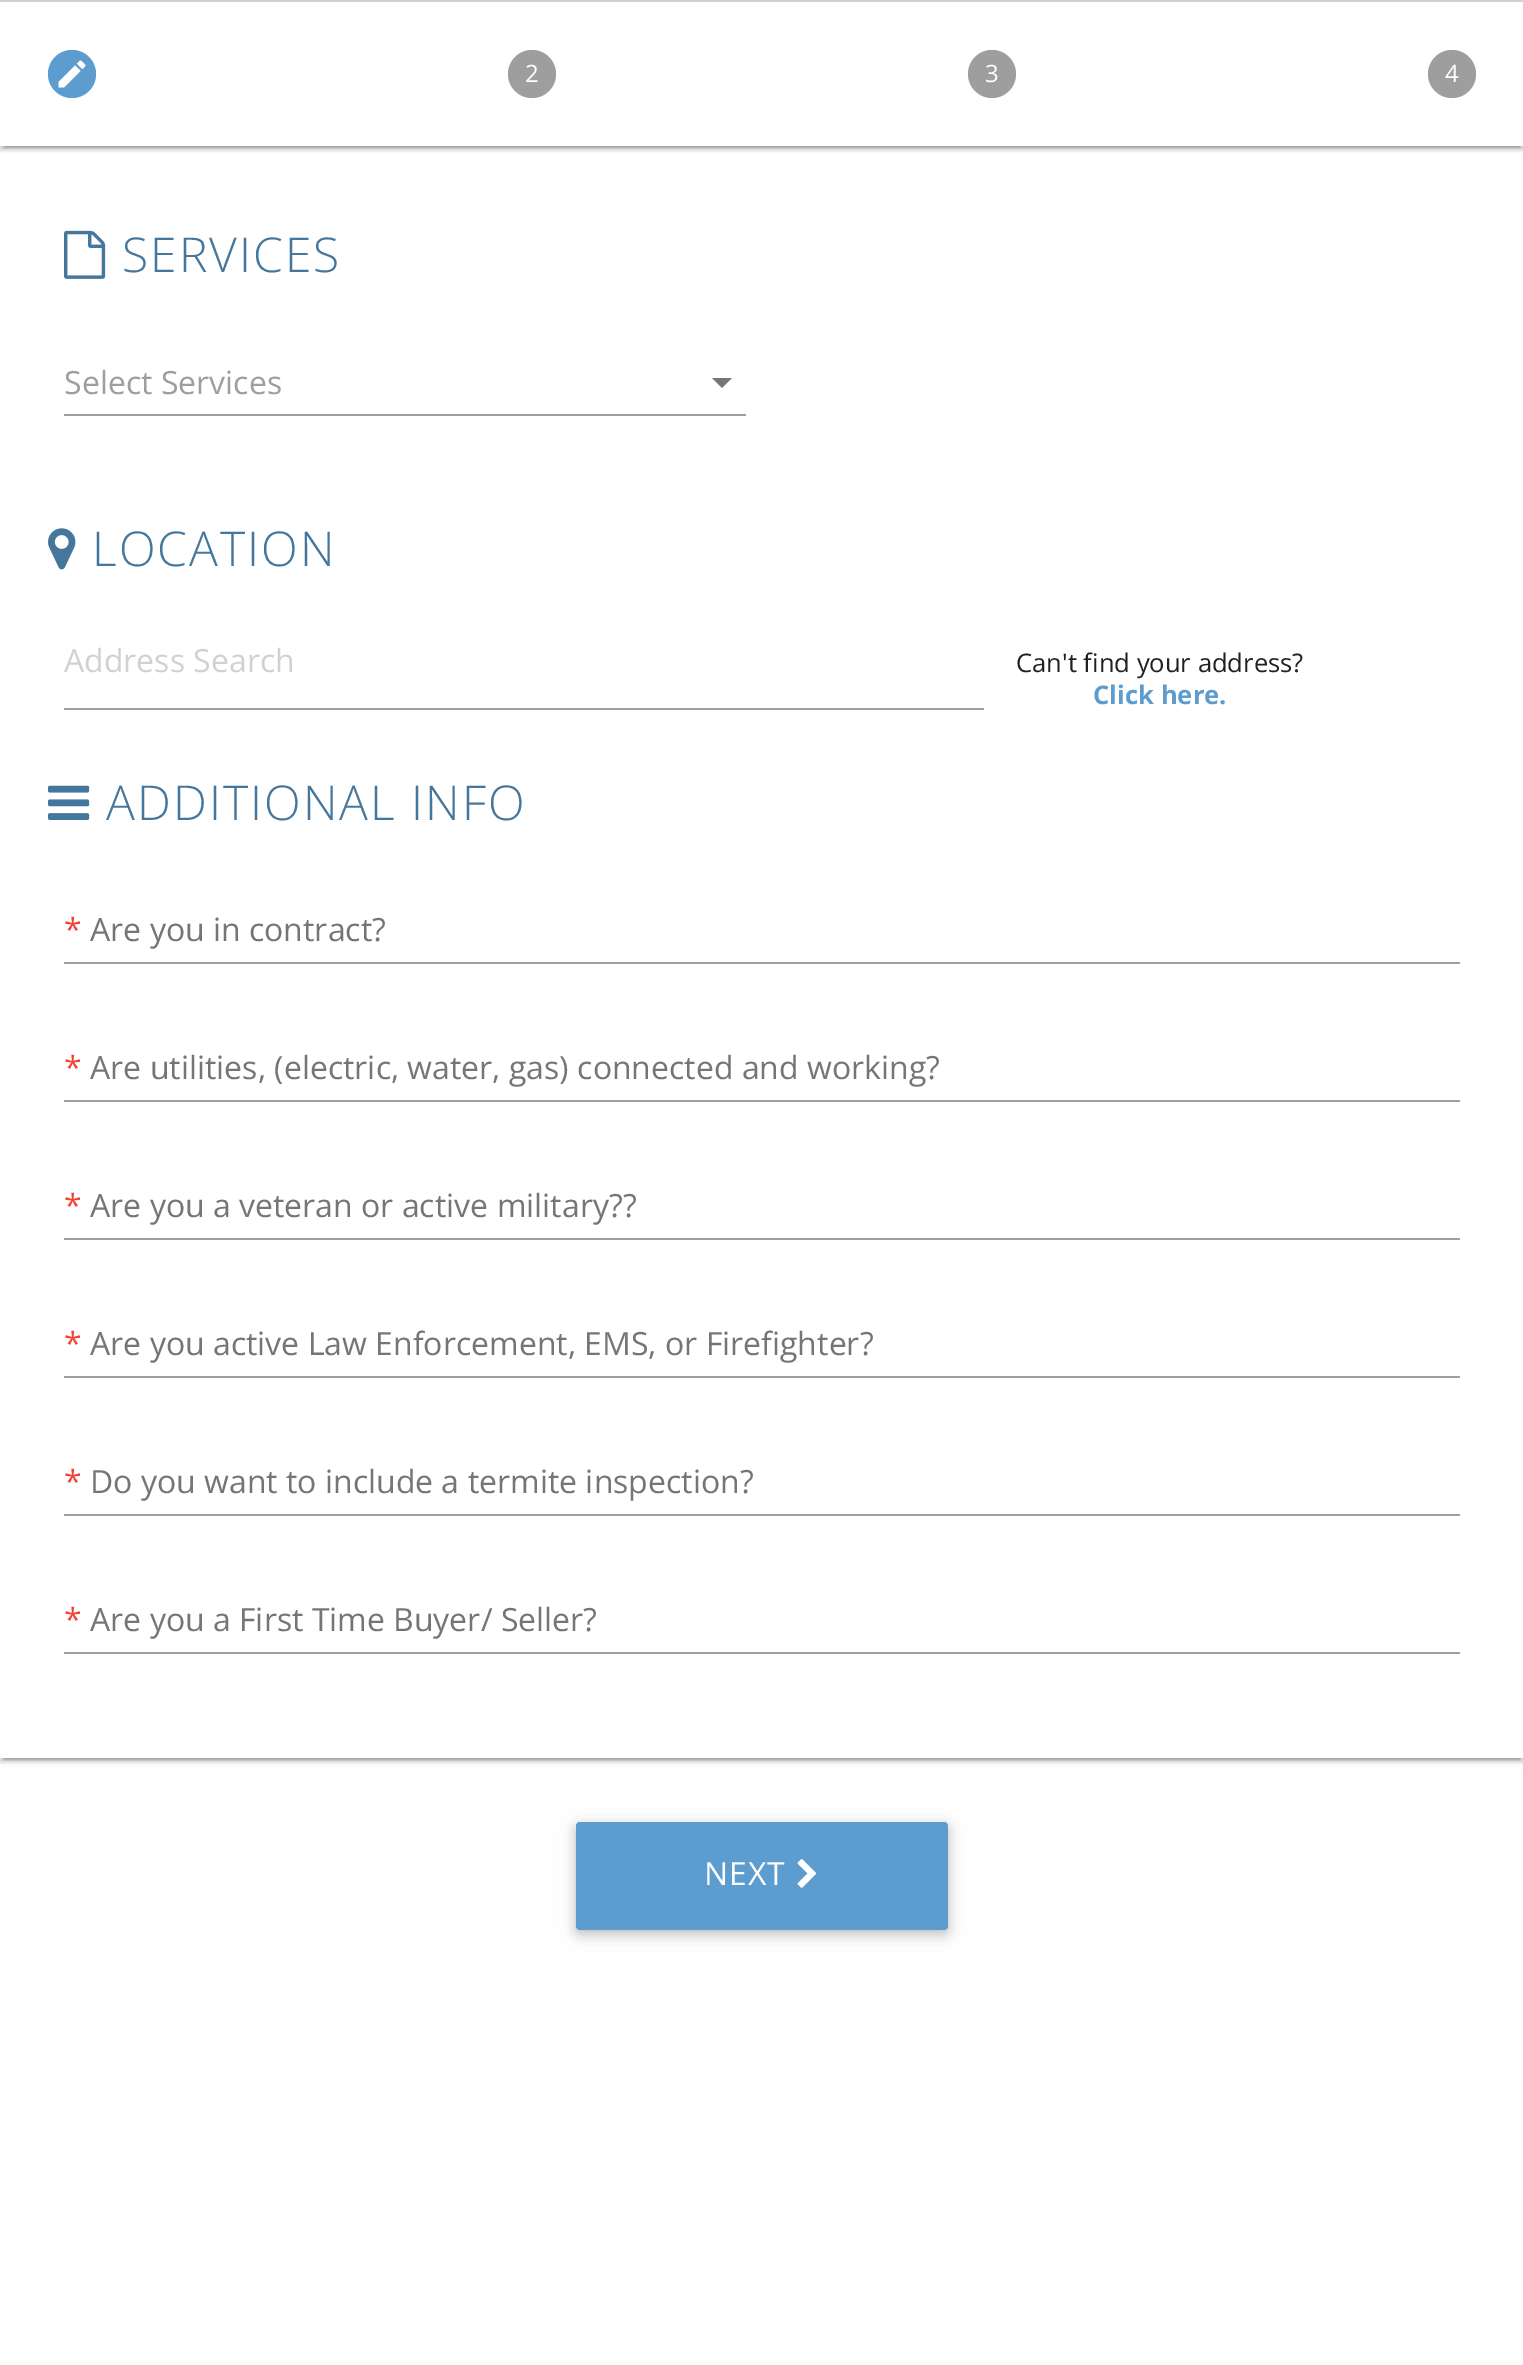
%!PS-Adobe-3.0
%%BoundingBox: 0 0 1523 2365
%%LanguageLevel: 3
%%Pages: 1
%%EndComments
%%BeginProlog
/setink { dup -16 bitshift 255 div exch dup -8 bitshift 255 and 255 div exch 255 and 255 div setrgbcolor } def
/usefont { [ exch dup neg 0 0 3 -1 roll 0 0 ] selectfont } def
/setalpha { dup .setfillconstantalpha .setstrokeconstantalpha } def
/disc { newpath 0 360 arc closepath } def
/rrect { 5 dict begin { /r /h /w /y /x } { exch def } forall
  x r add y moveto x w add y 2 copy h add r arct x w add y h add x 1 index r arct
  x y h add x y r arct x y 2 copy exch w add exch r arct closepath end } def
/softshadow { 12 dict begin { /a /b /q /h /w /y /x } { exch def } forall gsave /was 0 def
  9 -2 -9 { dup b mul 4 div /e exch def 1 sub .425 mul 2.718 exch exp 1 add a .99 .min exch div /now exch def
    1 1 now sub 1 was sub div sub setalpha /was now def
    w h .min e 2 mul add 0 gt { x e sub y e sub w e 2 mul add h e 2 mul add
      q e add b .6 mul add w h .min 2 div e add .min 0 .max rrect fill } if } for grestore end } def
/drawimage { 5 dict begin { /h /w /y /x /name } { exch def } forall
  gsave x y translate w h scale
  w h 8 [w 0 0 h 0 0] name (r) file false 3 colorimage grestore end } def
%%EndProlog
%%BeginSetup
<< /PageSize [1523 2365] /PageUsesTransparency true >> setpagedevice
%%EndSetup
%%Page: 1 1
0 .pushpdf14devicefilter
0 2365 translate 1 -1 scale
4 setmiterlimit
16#FFFFFF setink
0 0 1523 2365 rectfill
16#D9D9D9 setink
0 0 1523 2 rectfill
gsave
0 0 moveto 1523 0 lineto 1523 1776 lineto 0 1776 lineto closepath 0 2 moveto 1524 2 lineto 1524 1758 lineto 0 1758 lineto closepath eoclip newpath
16#000000 setink
0 4 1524 1756 0 5 0.12 softshadow
grestore
gsave
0 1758 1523 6 rectclip
16#000000 setink
0 6 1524 1756 0 2 0.14 softshadow
grestore
gsave
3 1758 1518 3 rectclip
16#000000 setink
4 12 1516 1748 0 1 0.2 softshadow
grestore
gsave
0 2 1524 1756 rectclip
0 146 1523 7 rectclip
16#000000 setink
0 4 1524 144 0 5 0.12 softshadow
grestore
gsave
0 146 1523 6 rectclip
16#000000 setink
0 6 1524 144 0 2 0.14 softshadow
grestore
gsave
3 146 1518 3 rectclip
16#000000 setink
4 12 1516 136 0 1 0.2 softshadow
grestore
16#5C9CCF setink
72 74 24 disc fill
(img1.raw) 58 60 28 28 drawimage
16#9E9E9E setink
532 74 24 disc fill
/OpenSans-Regular 24 usefont
16#FFFFFF setink
525 82 moveto (2) show
16#9E9E9E setink
992 74 24 disc fill
16#FFFFFF setink
985 82 moveto (3) show
16#9E9E9E setink
1452 74 24 disc fill
16#FFFFFF setink
1445 82 moveto (4) show
(img2.raw) 64 230 42 49 drawimage
/OpenSans-Light 48 usefont
16#45769C setink
122 272 moveto 2 0 (SERVICES) ashow
16#9E9E9E setink
64 414 682 2 rectfill
/OpenSans-Regular 32 usefont
64 394 moveto (Select Services) show
16#757575 setink
712 378 moveto 732 378 lineto 722 388 lineto closepath fill
(img3.raw) 48 528 28 42 drawimage
/OpenSans-Light 48 usefont
16#45769C setink
92 566 moveto 2 0 (LOCATION) ashow
16#9E9E9E setink
64 708 920 2 rectfill
/OpenSans-Regular 32 usefont
16#D1D1D1 setink
64 672 moveto (Address Search) show
/OpenSans-Regular 25.6 usefont
16#212121 setink
1016 672 moveto (Can't find your address?) show
/OpenSans-Bold 25.6 usefont
16#5C9CCF setink
1093 704 moveto (Click here.) show
(img4.raw) 48 785 42 35 drawimage
/OpenSans-Light 48 usefont
16#45769C setink
106 820 moveto 2 0 (ADDITIONAL INFO) ashow
/OpenSans-Regular 32 usefont
16#F44336 setink
64 941 moveto (*) show
16#757575 setink
90 941 moveto (Are you in contract?) show
16#9E9E9E setink
64 962 1396 2 rectfill
16#F44336 setink
64 1079 moveto (*) show
16#757575 setink
90 1079 moveto (Are utilities, \(electric, water, gas\) connected and working?) show
16#9E9E9E setink
64 1100 1396 2 rectfill
16#F44336 setink
64 1217 moveto (*) show
16#757575 setink
90 1217 moveto (Are you a veteran or active military??) show
16#9E9E9E setink
64 1238 1396 2 rectfill
16#F44336 setink
64 1355 moveto (*) show
16#757575 setink
90 1355 moveto (Are you active Law Enforcement, EMS, or Firefighter?) show
16#9E9E9E setink
64 1376 1396 2 rectfill
16#F44336 setink
64 1493 moveto (*) show
16#757575 setink
90 1493 moveto (Do you want to include a termite inspection?) show
16#9E9E9E setink
64 1514 1396 2 rectfill
16#F44336 setink
64 1631 moveto (*) show
16#757575 setink
90 1631 moveto (Are you a First Time Buyer/ Seller?) show
16#9E9E9E setink
64 1652 1396 2 rectfill
16#000000 setink
576 1826 372 108 4 10 0.12 softshadow
576 1826 372 108 4 5 0.16 softshadow
16#5C9CCF setink
576 1822 372 108 4 rrect fill
16#FFFFFF setink
704 1885 moveto 1 0 (NEXT) ashow
(img5.raw) 797 1859 20 29 drawimage
.poppdf14devicefilter showpage
%%EOF
